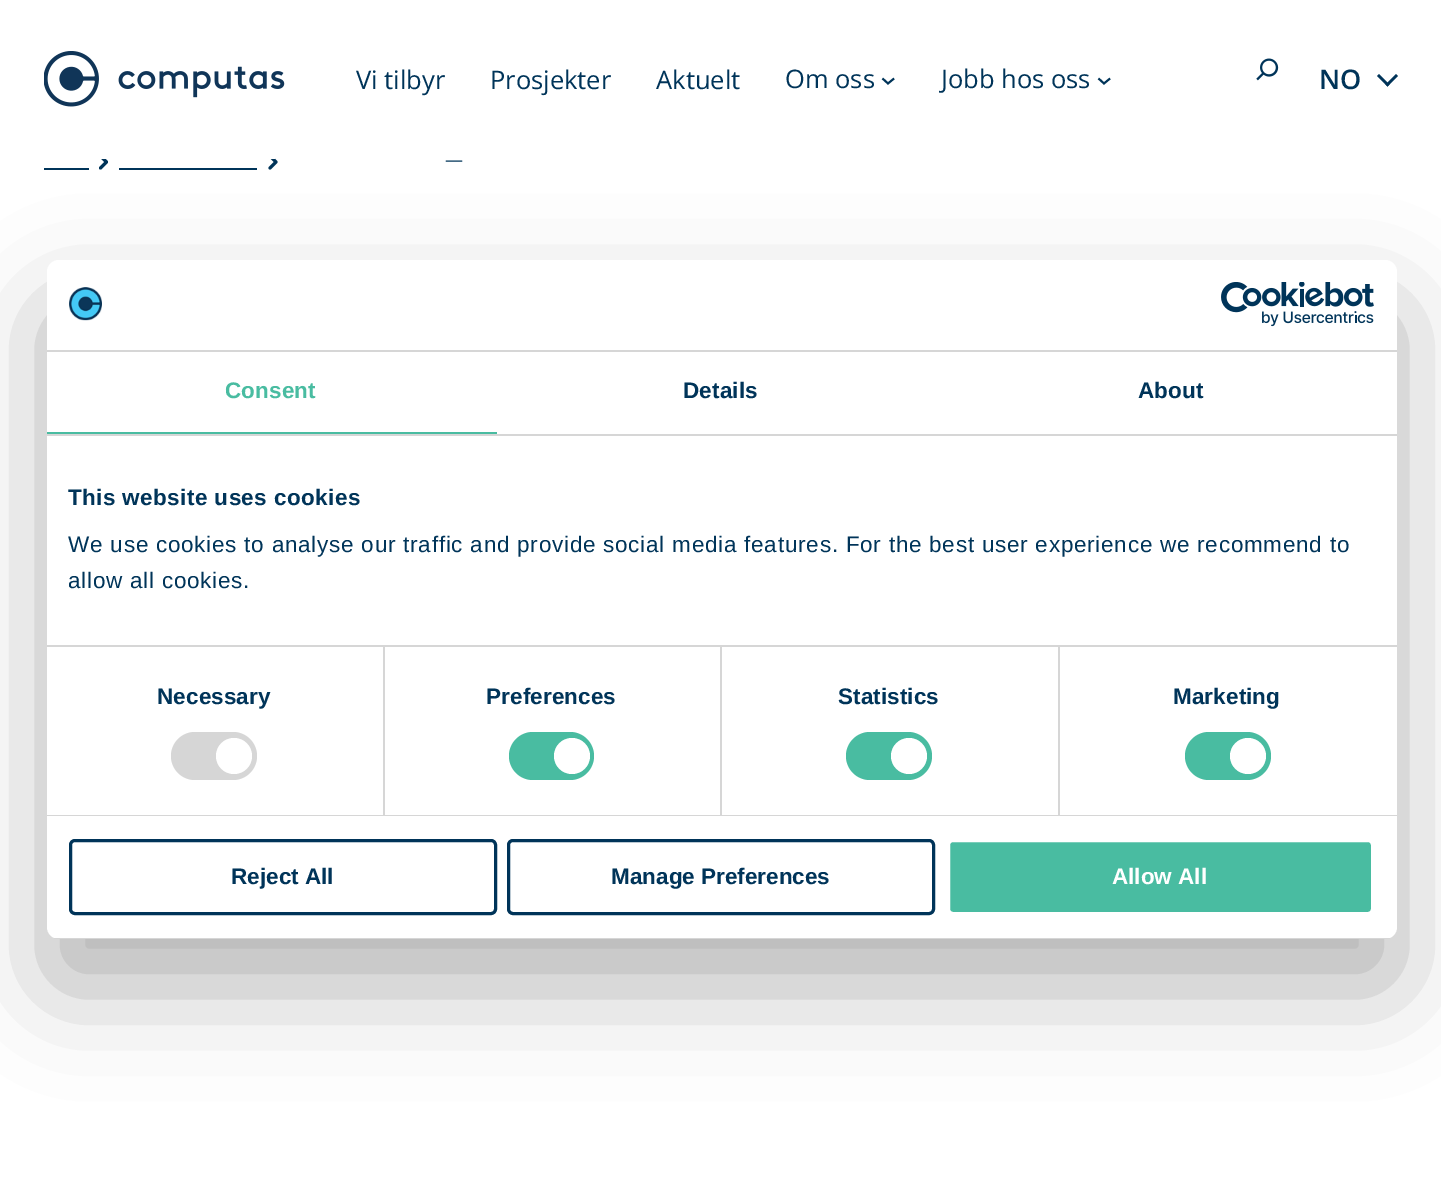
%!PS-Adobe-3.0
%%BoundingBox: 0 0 1441 1197
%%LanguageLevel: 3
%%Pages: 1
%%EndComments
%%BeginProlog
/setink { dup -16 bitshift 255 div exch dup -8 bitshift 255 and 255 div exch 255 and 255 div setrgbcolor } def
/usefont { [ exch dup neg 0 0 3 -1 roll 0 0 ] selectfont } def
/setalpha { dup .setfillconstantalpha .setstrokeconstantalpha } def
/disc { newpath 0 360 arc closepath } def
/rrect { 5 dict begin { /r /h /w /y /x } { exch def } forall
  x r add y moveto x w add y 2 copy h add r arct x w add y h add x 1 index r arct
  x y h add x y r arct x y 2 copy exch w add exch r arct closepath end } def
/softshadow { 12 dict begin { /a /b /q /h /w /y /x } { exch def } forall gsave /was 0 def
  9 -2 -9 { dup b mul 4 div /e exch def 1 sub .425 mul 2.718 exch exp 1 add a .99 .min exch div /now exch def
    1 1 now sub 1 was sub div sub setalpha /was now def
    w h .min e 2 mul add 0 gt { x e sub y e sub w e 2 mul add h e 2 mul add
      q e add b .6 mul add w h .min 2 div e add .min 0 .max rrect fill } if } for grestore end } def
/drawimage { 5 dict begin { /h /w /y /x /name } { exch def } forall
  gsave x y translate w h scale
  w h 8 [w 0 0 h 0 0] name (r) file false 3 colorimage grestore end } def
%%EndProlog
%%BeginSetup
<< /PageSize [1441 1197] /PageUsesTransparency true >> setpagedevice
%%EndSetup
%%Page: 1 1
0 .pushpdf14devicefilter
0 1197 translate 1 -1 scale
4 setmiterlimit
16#FFFFFF setink
0 0 1441 1197 rectfill
16#003459 setink
3 setlinewidth
1 setlinecap
1 setlinejoin
100.5 168 moveto 106.5 162 lineto 100.5 156 lineto stroke
270 168 moveto 276 162 lineto 270 156 lineto stroke
16#FFFFFF setink
99 154 176 5 rectfill
(img1.raw) 44 51 241 56 drawimage
/OpenSans-Regular 25.5 usefont
16#003459 setink
[
    [(Vi tilbyr) 356 89]
    [(Prosjekter) 490 89]
    [(Aktuelt) 656 89]
    [(Om oss) 785 88]
] { aload pop moveto show } forall
1.9 setlinewidth
0 setlinecap
0 setlinejoin
882.5 78.5 moveto 888 83.5 lineto 894 78.5 lineto stroke
941 88 moveto (Jobb hos oss) show
1098.5 78.5 moveto 1104 83.5 lineto 1110 78.5 lineto stroke
(img2.raw) 1256 58 23 23 drawimage
/OpenSans-SemiBold 27 usefont
1319 89 moveto (NO) show
1398 76 moveto 1387.5 86.5 lineto 1385.5 84.5 lineto 1396 74 lineto closepath fill
1389.5 84.5 moveto 1387.5 86.5 lineto 1377 76 lineto 1379 74 lineto closepath fill
/OpenSans-Regular 18 usefont
445 166 moveto (—) show
44 168 45 2 rectfill
119 168 138 2 rectfill
16#000000 setink
47 308 1350 679 12 51 0.3 softshadow
16#FFFFFF setink
47 260 1350 679 12 rrect fill
16#D6D6D6 setink
47 350 1350 2 rectfill
(img3.raw) 69 287 33 34 drawimage
(img4.raw) 1221 282 153 45 drawimage
47 434 1350 2 rectfill
16#49BCA1 setink
47 432 450 2 rectfill
/LiberationSans-Bold 22.5 usefont
225 398 moveto 0.1 0 (Consent) ashow
16#003459 setink
683 398 moveto 0.1 0 (Details) ashow
1138 398 moveto 0.1 0 (About) ashow
16#D6D6D6 setink
47 645 1350 2 rectfill
16#003459 setink
68 505 moveto 0.4 0 (This website uses cookies) ashow
/LiberationSans-Regular 22.5 usefont
68 552 moveto 0.75 0 (We use cookies to analyse our traffic and provide social media features. For the best user experience we recommend to) ashow
68 588 moveto 0.75 0 (allow all cookies.) ashow
16#D6D6D6 setink
47 815 1350 1 rectfill
383 647 2 168 rectfill
/LiberationSans-Bold 22.5 usefont
16#003459 setink
157 704 moveto 0.1 0 (Necessary) ashow
16#D6D6D6 setink
171 732 86 48 24 rrect fill
16#FFFFFF setink
234 756 18 disc fill
16#D6D6D6 setink
720 647 2 168 rectfill
16#003459 setink
486 704 moveto 0.1 0 (Preferences) ashow
16#49BCA1 setink
509 732 85 48 24 rrect fill
16#FFFFFF setink
572 756 18 disc fill
16#D6D6D6 setink
1058 647 2 168 rectfill
16#003459 setink
838 704 moveto 0.1 0 (Statistics) ashow
16#49BCA1 setink
846 732 86 48 24 rrect fill
16#FFFFFF setink
909 756 18 disc fill
16#003459 setink
1173 704 moveto 0.1 0 (Marketing) ashow
16#49BCA1 setink
1185 732 86 48 24 rrect fill
16#FFFFFF setink
1248 756 18 disc fill
gsave
47 260 1350 679 12 rrect clip newpath
16#D6D6D6 setink
47 938 1350 1 rectfill
grestore
16#003459 setink
3 setlinewidth
70.5 840.5 425 73 4.5 rrect stroke
231 884 moveto (Reject All) show
508.5 840.5 425 73 4.5 rrect stroke
611 884 moveto (Manage Preferences) show
16#49BCA1 setink
948.5 840.5 424 73 4.5 rrect gsave fill grestore
16#FFFFFF setink
stroke
1112 884 moveto (Allow All) show
.poppdf14devicefilter showpage
%%EOF
